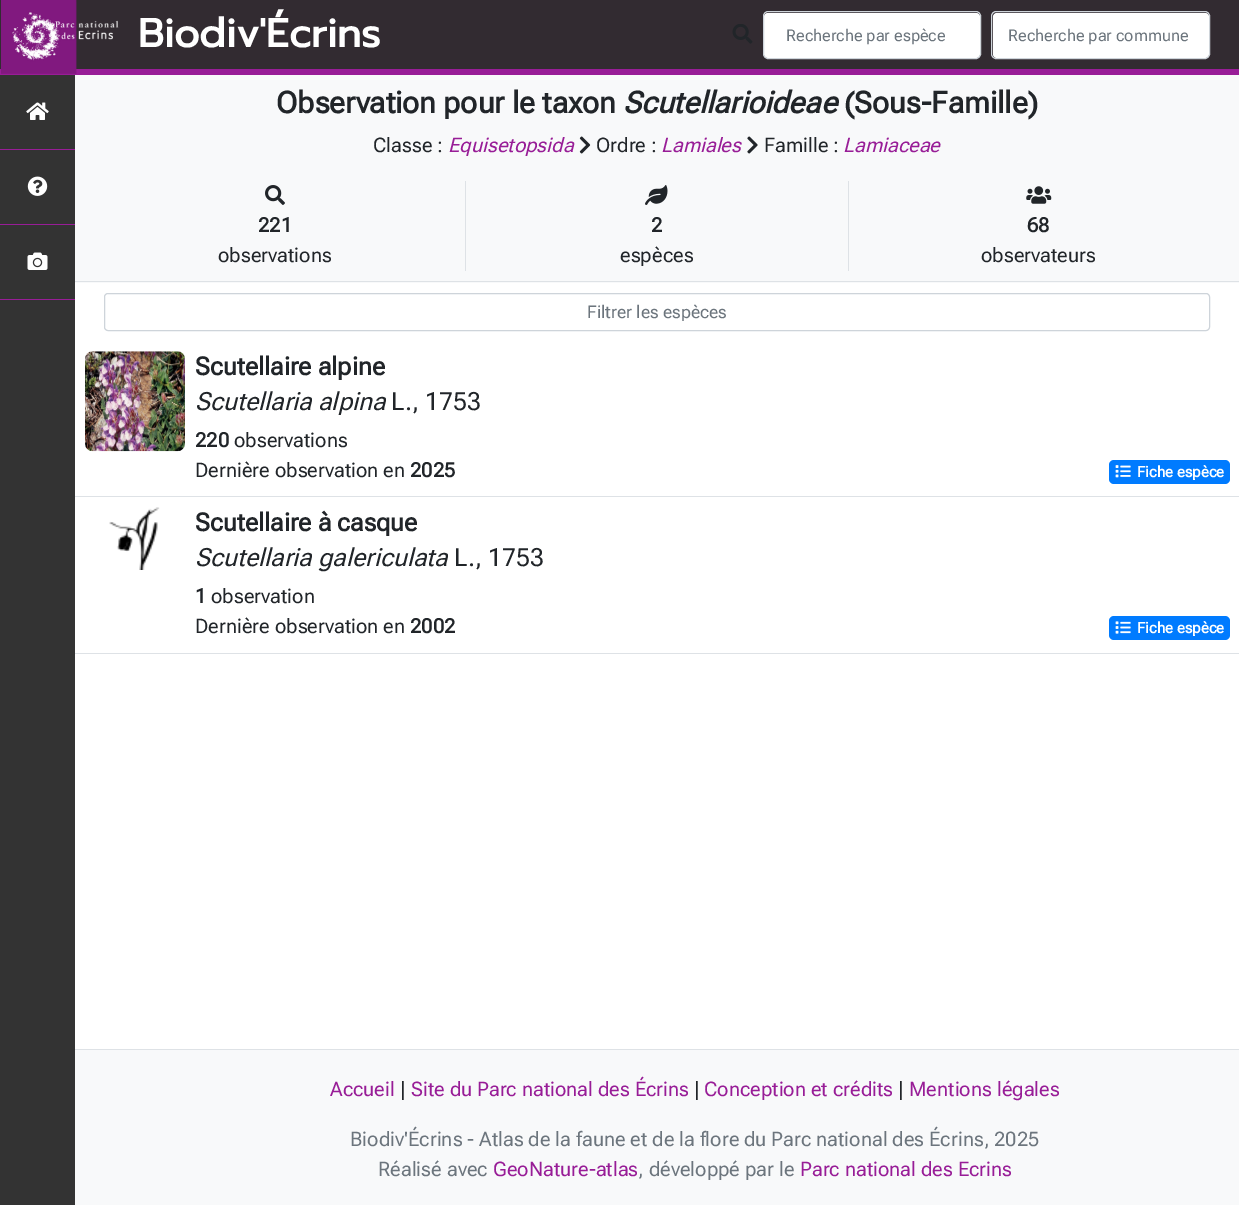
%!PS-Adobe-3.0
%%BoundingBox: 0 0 1239 1205
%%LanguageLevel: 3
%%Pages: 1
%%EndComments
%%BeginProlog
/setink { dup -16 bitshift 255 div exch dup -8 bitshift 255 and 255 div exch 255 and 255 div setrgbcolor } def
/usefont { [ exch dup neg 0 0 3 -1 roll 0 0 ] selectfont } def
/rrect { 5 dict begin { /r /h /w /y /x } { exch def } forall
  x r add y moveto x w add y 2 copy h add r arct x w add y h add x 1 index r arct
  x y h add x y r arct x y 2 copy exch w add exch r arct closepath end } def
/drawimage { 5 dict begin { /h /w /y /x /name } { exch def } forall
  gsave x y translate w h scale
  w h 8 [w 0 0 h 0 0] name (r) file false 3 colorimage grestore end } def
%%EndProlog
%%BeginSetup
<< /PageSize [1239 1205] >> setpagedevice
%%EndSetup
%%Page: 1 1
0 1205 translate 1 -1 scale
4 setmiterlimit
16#DEE2E6 setink
0 0 1239 1205 rectfill
16#322B31 setink
0 0 1239 69 rectfill
16#981D97 setink
0 69 1239 6 rectfill
(img1.raw) 1 0 118 74 drawimage
/Prompt-Bold 40 usefont
16#FFFFFF setink
138 47 moveto (Biodiv'Écrins) show
(img2.raw) 732 24 21 20 drawimage
764 13 216 45 4 rrect fill
16#CED4DA setink
763.5 11.5 217 47 4.5 rrect stroke
/RobotoFlex-Regular 16.25 usefont
16#6C757D setink
786 41 moveto (Recherche par espèce) show
16#FFFFFF setink
993 13 216 45 4 rrect fill
16#CED4DA setink
991.5 11.5 218 47 4.5 rrect stroke
16#6C757D setink
1008 41 moveto (Recherche par commune) show
16#333333 setink
0 75 75 1130 rectfill
16#981D97 setink
0 149 75 1 rectfill
(img3.raw) 26 102 23 18 drawimage
0 224 75 1 rectfill
(img4.raw) 27 176 21 20 drawimage
0 299 75 1 rectfill
(img5.raw) 27 252 21 18 drawimage
16#F8F9FA setink
75 75 1164 208 rectfill
16#DEE2E6 setink
75 281 1164 1 rectfill
/RobotoFlex-Bold 30 usefont
16#212529 setink
276 113 moveto (Observation pour le taxon) show
/RobotoFlex-BoldItalic 30 usefont
623 113 moveto (Scutellarioideae) show
/RobotoFlex-Bold 30 usefont
844 113 moveto (\(Sous-Famille\)) show
/RobotoFlex-Regular 20 usefont
373 152 moveto (Classe :) show
/RobotoFlex-Italic 20 usefont
16#981D97 setink
448 152 moveto (Equisetopsida) show
(img6.raw) 579 136 12 18 drawimage
/RobotoFlex-Regular 20 usefont
16#212529 setink
596 152 moveto (Ordre :) show
/RobotoFlex-Italic 20 usefont
16#981D97 setink
661 152 moveto (Lamiales) show
(img7.raw) 747 136 11 18 drawimage
/RobotoFlex-Regular 20 usefont
16#212529 setink
764 152 moveto (Famille :) show
/RobotoFlex-Italic 20 usefont
16#981D97 setink
843 152 moveto (Lamiaceae) show
16#DEE2E6 setink
465 181 1 90 rectfill
(img8.raw) 265 185 20 20 drawimage
/RobotoFlex-Bold 20 usefont
16#212529 setink
258 232 moveto (221) show
/RobotoFlex-Regular 20 usefont
218 262 moveto (observations) show
16#DEE2E6 setink
848 181 1 90 rectfill
(img9.raw) 645 185 23 20 drawimage
/RobotoFlex-Bold 20 usefont
16#212529 setink
651 232 moveto (2) show
/RobotoFlex-Regular 20 usefont
620 262 moveto (espèces) show
(img10.raw) 1026 186 26 18 drawimage
/RobotoFlex-Bold 20 usefont
1027 232 moveto (68) show
/RobotoFlex-Regular 20 usefont
981 262 moveto (observateurs) show
16#FFFFFF setink
75 283 1164 766 rectfill
16#CED4DA setink
104.5 293.5 1105 37 3.5 rrect stroke
gsave
115 301 1084 20 rectclip
/RobotoFlex-Regular 17.5 usefont
16#6C757D setink
587 318 moveto (Filtrer les espèces) show
grestore
16#DEE2E6 setink
75 496 1164 1 rectfill
(img11.raw) 85 351 100 101 drawimage
/RobotoFlex-Bold 25 usefont
16#212529 setink
195 375 moveto (Scutellaire alpine) show
/RobotoFlex-Italic 25 usefont
195 410 moveto (Scutellaria alpina) show
/RobotoFlex-Regular 25 usefont
391 410 moveto (L., 1753) show
/RobotoFlex-Bold 20 usefont
195 447 moveto (220) show
/RobotoFlex-Regular 20 usefont
234 447 moveto (observations) show
195 477 moveto (Dernière observation en) show
/RobotoFlex-Bold 20 usefont
410 477 moveto (2025) show
16#007BFF setink
1109 460 121 24 5 rrect fill
(img12.raw) 1115 465 16 13 drawimage
/RobotoFlex-Bold 15 usefont
16#FFFFFF setink
1137 477 moveto (Fiche espèce) show
16#DEE2E6 setink
75 653 1164 1 rectfill
(img13.raw) 109 507 51 63 drawimage
/RobotoFlex-Bold 25 usefont
16#212529 setink
195 531 moveto (Scutellaire à casque) show
/RobotoFlex-Italic 25 usefont
195 566 moveto (Scutellaria galericulata) show
/RobotoFlex-Regular 25 usefont
454 566 moveto (L., 1753) show
/RobotoFlex-Bold 20 usefont
195 603 moveto (1) show
/RobotoFlex-Regular 20 usefont
211 603 moveto (observation) show
195 633 moveto (Dernière observation en) show
/RobotoFlex-Bold 20 usefont
410 633 moveto (2002) show
16#007BFF setink
1109 616 121 24 5 rrect fill
(img14.raw) 1115 621 16 13 drawimage
/RobotoFlex-Bold 15 usefont
16#FFFFFF setink
1137 633 moveto (Fiche espèce) show
16#F8F9FA setink
75 1050 1164 155 rectfill
/RobotoFlex-Regular 20 usefont
16#981D97 setink
330 1096 moveto (Accueil) show
16#212529 setink
400 1096 moveto (|) show
16#981D97 setink
411 1096 moveto (Site du Parc national des Écrins) show
16#212529 setink
694 1096 moveto (|) show
16#981D97 setink
704 1096 moveto (Conception et crédits) show
16#212529 setink
898 1096 moveto (|) show
16#981D97 setink
909 1096 moveto (Mentions légales) show
16#6C757D setink
350 1146 moveto (Biodiv'Écrins - Atlas de la faune et de la flore du Parc national des Écrins, 2025) show
378 1176 moveto (Réalisé avec) show
16#981D97 setink
493 1176 moveto (GeoNature-atlas) show
16#6C757D setink
638 1176 moveto (, développé par le) show
16#981D97 setink
800 1176 moveto (Parc national des Ecrins) show
showpage
%%EOF
